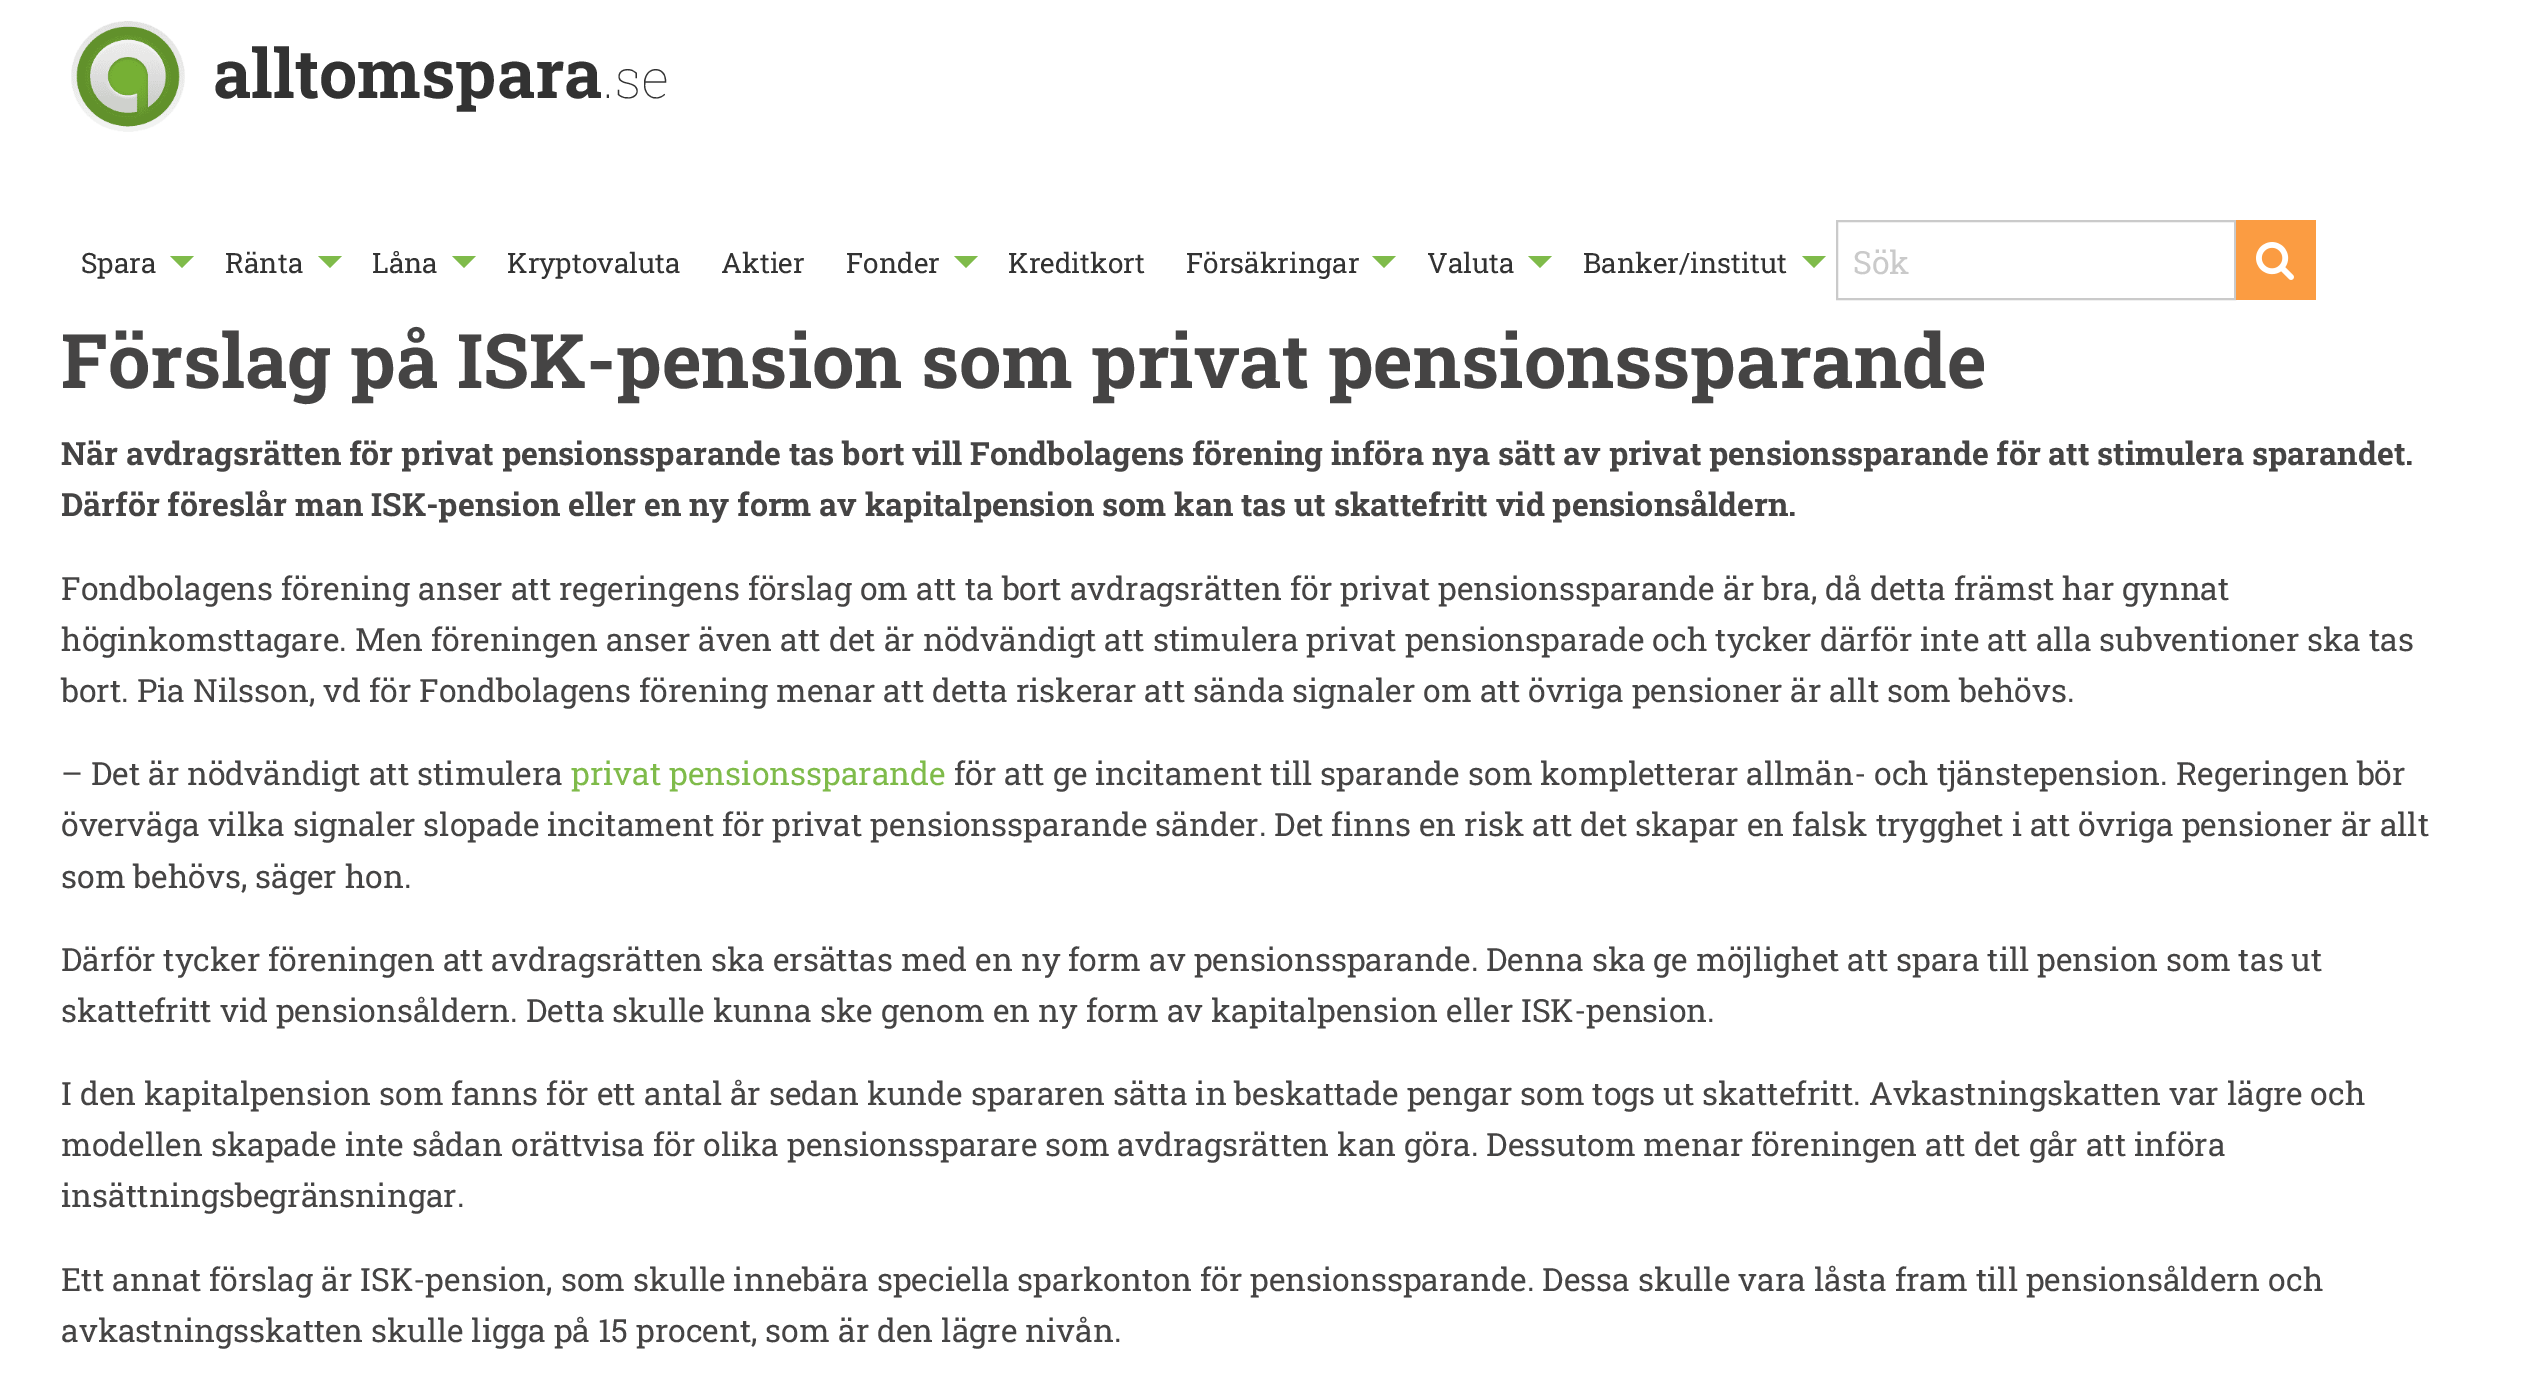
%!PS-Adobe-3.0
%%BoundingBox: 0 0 2522 1389
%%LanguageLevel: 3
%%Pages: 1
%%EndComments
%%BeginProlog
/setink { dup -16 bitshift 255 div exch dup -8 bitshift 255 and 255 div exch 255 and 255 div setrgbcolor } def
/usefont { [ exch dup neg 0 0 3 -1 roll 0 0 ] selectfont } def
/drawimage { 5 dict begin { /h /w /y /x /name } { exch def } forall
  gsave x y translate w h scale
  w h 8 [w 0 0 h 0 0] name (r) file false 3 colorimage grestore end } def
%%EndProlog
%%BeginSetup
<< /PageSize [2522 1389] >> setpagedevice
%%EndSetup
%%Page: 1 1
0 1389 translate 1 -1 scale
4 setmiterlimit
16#FFFFFF setink
0 0 2522 1389 rectfill
(img1.raw) 71 21 114 111 drawimage
/RobotoSlab-Bold 68 usefont
16#323232 setink
213 98 moveto (alltomspara) show
/RobotoSlab-Thin 54 usefont
603 98 moveto (.se) show
/RobotoSlab-Regular 28 usefont
81 273 moveto (Spara) show
16#7FBB4A setink
170 256 moveto 194 256 lineto 182 268 lineto closepath fill
16#323232 setink
225 273 moveto (Ränta) show
16#7FBB4A setink
318 256 moveto 342 256 lineto 330 268 lineto closepath fill
16#323232 setink
372 273 moveto (Låna) show
16#7FBB4A setink
452 256 moveto 476 256 lineto 464 268 lineto closepath fill
16#323232 setink
[
    [(Kryptovaluta) 507 273]
    [(Aktier) 721 273]
    [(Fonder) 846 273]
] { aload pop moveto show } forall
16#7FBB4A setink
954 256 moveto 978 256 lineto 966 268 lineto closepath fill
16#323232 setink
1008 273 moveto (Kreditkort) show
1186 273 moveto (Försäkringar) show
16#7FBB4A setink
1372 256 moveto 1396 256 lineto 1384 268 lineto closepath fill
16#323232 setink
1427 273 moveto (Valuta) show
16#7FBB4A setink
1528 256 moveto 1552 256 lineto 1540 268 lineto closepath fill
16#323232 setink
1583 273 moveto (Banker/institut) show
16#7FBB4A setink
1802 256 moveto 1826 256 lineto 1814 268 lineto closepath fill
16#CACACA setink
2 setlinewidth
1837 221 398 78 rectstroke
/RobotoSlab-Regular 32 usefont
1853 274 moveto (Sök) show
16#FB9C42 setink
2236 220 80 80 rectfill
(img2.raw) 2256 242 38 38 drawimage
/RobotoSlab-Bold 75.45 usefont
16#454444 setink
61 388 moveto (Förslag på ISK-pension som privat pensionssparande) show
/RobotoSlab-Bold 32 usefont
61 465 moveto (När avdragsrätten för privat pensionssparande tas bort vill Fondbolagens förening införa nya sätt av privat pensionssparande för att stimulera sparandet.) show
61 516 moveto (Därför föreslår man ISK-pension eller en ny form av kapitalpension som kan tas ut skattefritt vid pensionsåldern.) show
/RobotoSlab-Regular 32 usefont
[
    [(Fondbolagens förening anser att regeringens förslag om att ta bort avdragsrätten för privat pensionssparande är bra, då detta främst har gynnat) 61 600]
    [(höginkomsttagare. Men föreningen anser även att det är nödvändigt att stimulera privat pensionsparade och tycker därför inte att alla subventioner ska tas) 61 651]
    [(bort. Pia Nilsson, vd för Fondbolagens förening menar att detta riskerar att sända signaler om att övriga pensioner är allt som behövs.) 61 702]
    [(– Det är nödvändigt att stimulera) 61 785]
] { aload pop moveto show } forall
16#7FBB4A setink
571 785 moveto (privat pensionssparande) show
16#454444 setink
[
    [(för att ge incitament till sparande som kompletterar allmän- och tjänstepension. Regeringen bör) 954 785]
    [(överväga vilka signaler slopade incitament för privat pensionssparande sänder. Det finns en risk att det skapar en falsk trygghet i att övriga pensioner är allt) 61 836]
    [(som behövs, säger hon.) 61 888]
    [(Därför tycker föreningen att avdragsrätten ska ersättas med en ny form av pensionssparande. Denna ska ge möjlighet att spara till pension som tas ut) 61 971]
    [(skattefritt vid pensionsåldern. Detta skulle kunna ske genom en ny form av kapitalpension eller ISK-pension.) 61 1022]
    [(I den kapitalpension som fanns för ett antal år sedan kunde spararen sätta in beskattade pengar som togs ut skattefritt. Avkastningskatten var lägre och) 61 1105]
    [(modellen skapade inte sådan orättvisa för olika pensionssparare som avdragsrätten kan göra. Dessutom menar föreningen att det går att införa) 61 1156]
    [(insättningsbegränsningar.) 61 1207]
    [(Ett annat förslag är ISK-pension, som skulle innebära speciella sparkonton för pensionssparande. Dessa skulle vara låsta fram till pensionsåldern och) 61 1291]
    [(avkastningsskatten skulle ligga på 15 procent, som är den lägre nivån.) 61 1342]
] { aload pop moveto show } forall
showpage
%%EOF
